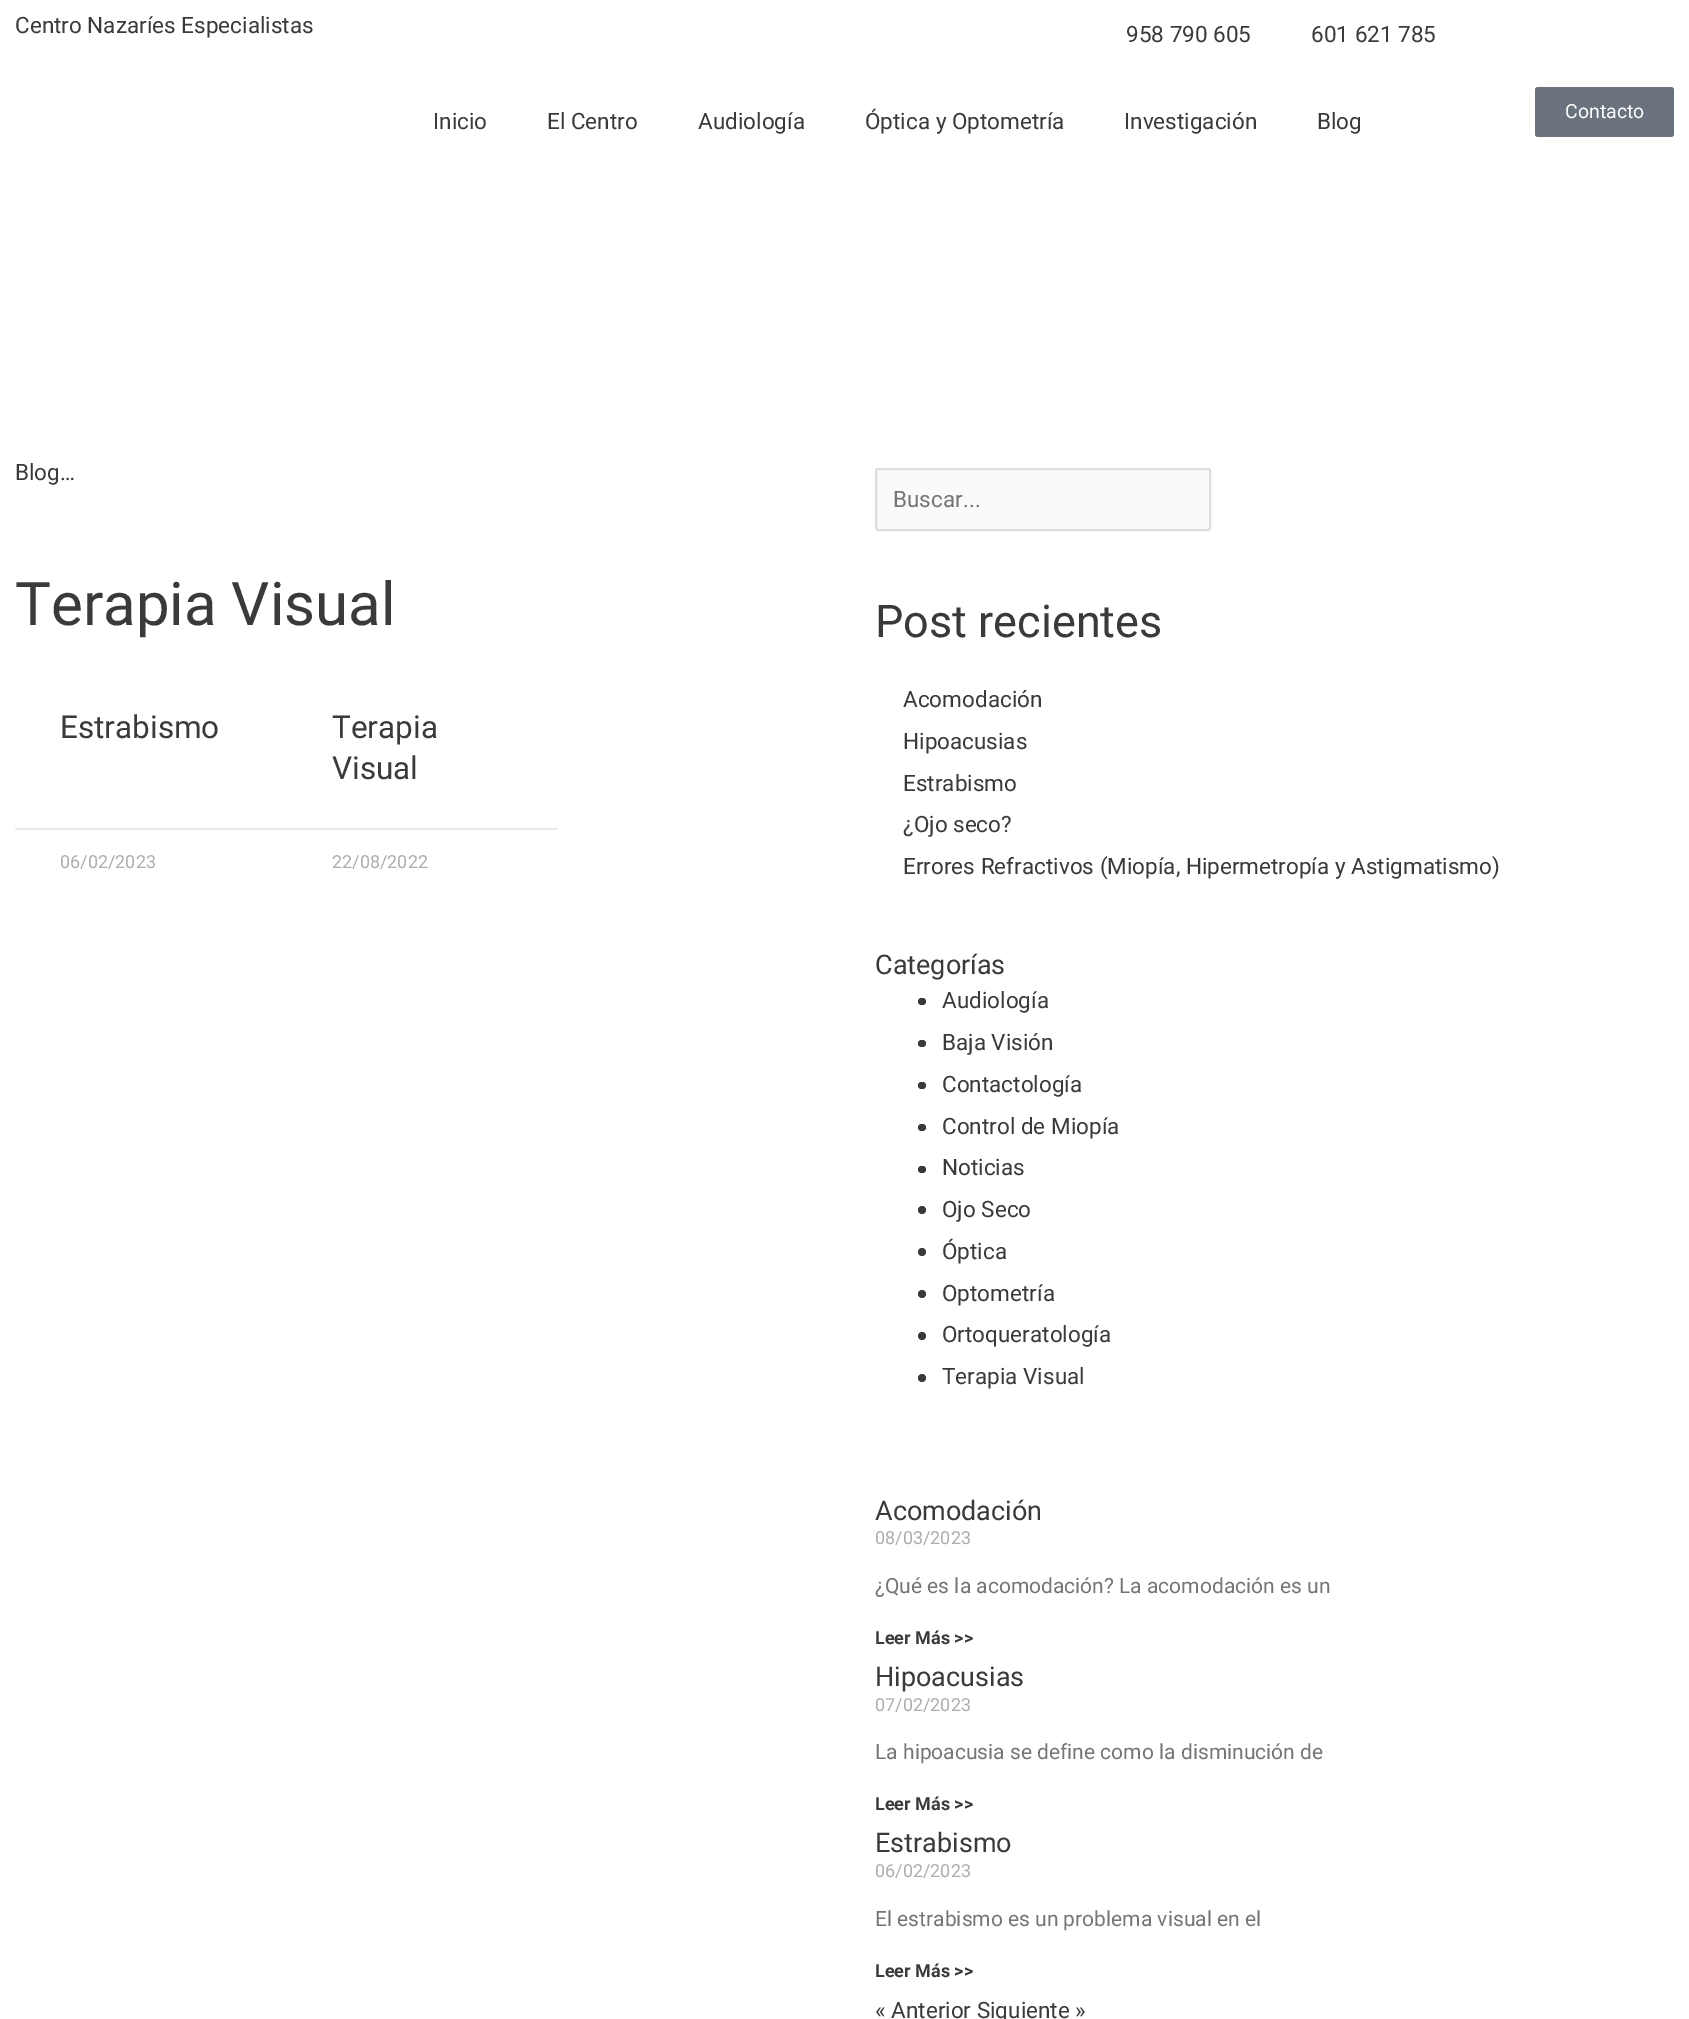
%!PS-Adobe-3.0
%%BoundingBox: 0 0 1689 2019
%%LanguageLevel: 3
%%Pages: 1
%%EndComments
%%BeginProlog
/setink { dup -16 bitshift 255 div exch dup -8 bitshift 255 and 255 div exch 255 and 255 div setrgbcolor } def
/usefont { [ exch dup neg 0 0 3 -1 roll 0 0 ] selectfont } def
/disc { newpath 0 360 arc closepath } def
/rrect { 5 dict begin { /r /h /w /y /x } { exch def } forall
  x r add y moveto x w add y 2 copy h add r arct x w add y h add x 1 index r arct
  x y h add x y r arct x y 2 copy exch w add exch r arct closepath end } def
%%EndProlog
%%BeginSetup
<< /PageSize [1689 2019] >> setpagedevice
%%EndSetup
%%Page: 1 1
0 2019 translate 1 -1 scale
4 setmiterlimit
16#FFFFFF setink
0 0 1689 2019 rectfill
/Roboto-Regular 22.5 usefont
16#3A3A3A setink
[
    [(Centro Nazaríes Especialistas) 15 33]
    [(958 790 605) 1126 42]
    [(601 621 785) 1311 42]
    [(Inicio) 433 129]
    [(El Centro) 547 129]
    [(Audiología) 698 129]
    [(Óptica y Optometría) 865 129]
    [(Investigación) 1124 129]
    [(Blog) 1317 129]
] { aload pop moveto show } forall
16#69727D setink
1535 87 139 50 3 rrect fill
/Roboto-Regular 19.5 usefont
16#FFFFFF setink
1565 118 moveto (Contacto) show
/Roboto-Regular 22.5 usefont
16#3A3A3A setink
15 480 moveto (Blog…) show
/Roboto-Regular 60 usefont
15 625 moveto (Terapia Visual) show
/Roboto-Regular 31.5 usefont
60 738 moveto (Estrabismo) show
16#EAEAEA setink
15 828 543 2 rectfill
/Roboto-Regular 18 usefont
16#ADADAD setink
60 868 moveto (06/02/2023) show
/Roboto-Regular 31.5 usefont
16#3A3A3A setink
332 738 moveto (Terapia) show
332 779 moveto (Visual) show
/Roboto-Regular 18 usefont
16#ADADAD setink
332 868 moveto (22/08/2022) show
16#FAFAFA setink
876 469 334 61 2 rrect gsave fill grestore
16#DDDDDD setink
2 setlinewidth
stroke
/Roboto-Regular 22.5 usefont
16#757575 setink
893 507 moveto (Buscar...) show
/Roboto-Regular 45 usefont
16#3A3A3A setink
875 637 moveto (Post recientes) show
/Roboto-Regular 22.5 usefont
[
    [(Acomodación) 903 707]
    [(Hipoacusias) 903 749]
    [(Estrabismo) 903 791]
    [(¿Ojo seco?) 903 832]
    [(Errores Refractivos \(Miopía, Hipermetropía y Astigmatismo\)) 903 874]
] { aload pop moveto show } forall
/Roboto-Regular 27 usefont
875 974 moveto (Categorías) show
918 998 8 7 3.5 rrect fill
/Roboto-Regular 22.5 usefont
942 1008 moveto (Audiología) show
918 1040 8 7 3.5 rrect fill
942 1050 moveto (Baja Visión) show
918 1082 8 7 3.5 rrect fill
942 1092 moveto (Contactología) show
918 1124 8 7 3.5 rrect fill
942 1134 moveto (Control de Miopía) show
918 1166 8 7 3.5 rrect fill
942 1175 moveto (Noticias) show
922 1210 4 disc fill
942 1217 moveto (Ojo Seco) show
922 1252 4 disc fill
942 1259 moveto (Óptica) show
922 1294 4 disc fill
942 1301 moveto (Optometría) show
922 1336 4 disc fill
942 1342 moveto (Ortoqueratología) show
922 1378 4 disc fill
942 1384 moveto (Terapia Visual) show
/Roboto-Regular 27 usefont
875 1520 moveto (Acomodación) show
/Roboto-Regular 18 usefont
16#ADADAD setink
875 1544 moveto (08/03/2023) show
/Roboto-Regular 21 usefont
16#757575 setink
875 1593 moveto (¿Qué es la acomodación? La acomodación es un) show
/Roboto-Bold 18 usefont
16#3A3A3A setink
875 1644 moveto (Leer Más >>) show
/Roboto-Regular 27 usefont
875 1686 moveto (Hipoacusias) show
/Roboto-Regular 18 usefont
16#ADADAD setink
875 1711 moveto (07/02/2023) show
/Roboto-Regular 21 usefont
16#757575 setink
875 1759 moveto (La hipoacusia se define como la disminución de) show
/Roboto-Bold 18 usefont
16#3A3A3A setink
875 1810 moveto (Leer Más >>) show
/Roboto-Regular 27 usefont
875 1852 moveto (Estrabismo) show
/Roboto-Regular 18 usefont
16#ADADAD setink
875 1877 moveto (06/02/2023) show
/Roboto-Regular 21 usefont
16#757575 setink
875 1926 moveto (El estrabismo es un problema visual en el) show
/Roboto-Bold 18 usefont
16#3A3A3A setink
875 1977 moveto (Leer Más >>) show
/Roboto-Regular 22.5 usefont
875 2018 moveto (« Anterior Siguiente ») show
showpage
%%EOF
